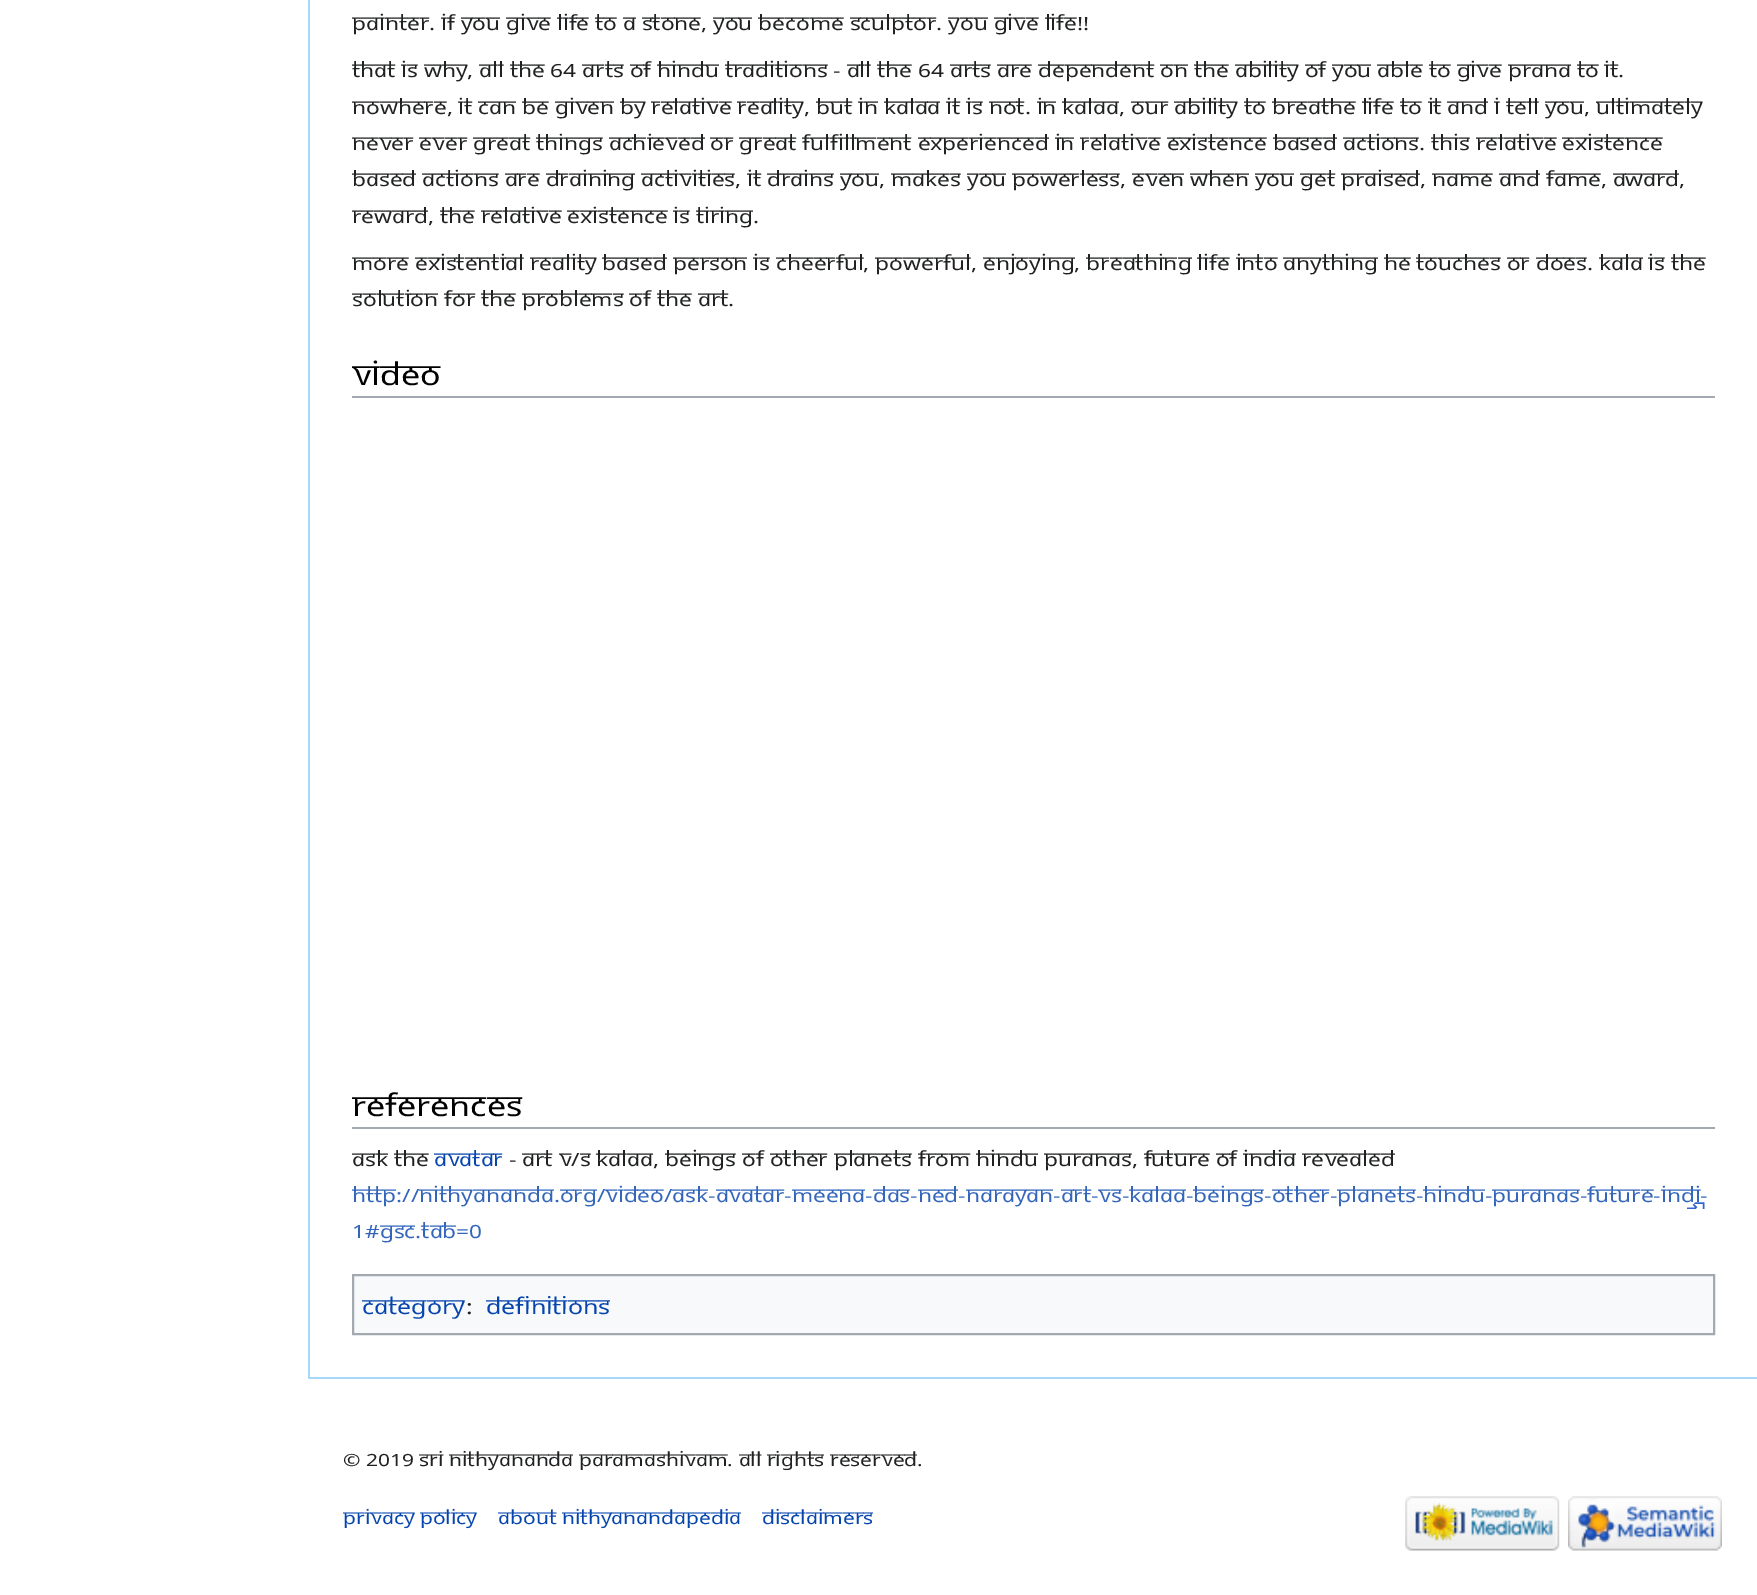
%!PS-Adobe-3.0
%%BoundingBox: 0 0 1757 1595
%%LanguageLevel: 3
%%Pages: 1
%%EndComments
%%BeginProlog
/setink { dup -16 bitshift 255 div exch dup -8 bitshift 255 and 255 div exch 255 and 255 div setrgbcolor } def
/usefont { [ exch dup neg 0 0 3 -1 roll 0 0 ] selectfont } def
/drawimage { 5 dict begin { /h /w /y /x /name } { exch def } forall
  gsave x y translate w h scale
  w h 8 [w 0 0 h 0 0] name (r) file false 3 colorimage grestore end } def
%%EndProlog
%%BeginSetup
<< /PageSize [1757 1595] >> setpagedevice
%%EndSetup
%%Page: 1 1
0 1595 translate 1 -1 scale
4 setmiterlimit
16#FFFFFF setink
0 0 1757 1595 rectfill
16#A7D7F9 setink
308 1377 1449 2 rectfill
308 0 2 1379 rectfill
/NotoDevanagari-Regular 22.68 usefont
16#202122 setink
[
    [(painter. If you give life to a stone, you become sculptor. You give life!!) 352 30]
    [(That is why, all the 64 arts of Hindu traditions - all the 64 arts are dependent on the ability of you able to give prana to it.) 352 77]
    [(Nowhere, it can be given by relative reality, but in kalaa it is not. In kalaa, our ability to breathe life to it and I tell you, ultimately) 352 114]
    [(never ever great things achieved or great fulfillment experienced in relative existence based actions. This relative existence) 352 150]
    [(based actions are draining activities, it drains you, makes you powerless, even when you get praised, name and fame, award,) 352 186]
    [(reward, the relative existence is tiring.) 352 223]
    [(More existential reality based person is cheerful, powerful, enjoying, breathing life into anything he touches or does. Kala is the) 352 270]
    [(solution for the problems of the art.) 352 306]
] { aload pop moveto show } forall
16#A2A9B1 setink
352 396 1363 2 rectfill
/NotoDevanagari-Regular 34 usefont
16#000000 setink
352 385 moveto (Video) show
16#A2A9B1 setink
352 1127 1363 2 rectfill
16#000000 setink
352 1116 moveto (References) show
/NotoDevanagari-Regular 22.68 usefont
16#202122 setink
352 1166 moveto (Ask the) show
16#0645AD setink
434 1166 moveto (Avatar) show
16#202122 setink
509 1166 moveto (- Art v/s Kalaa, Beings of other Planets from Hindu Puranas, Future of India Revealed) show
(img1.raw) 1686 1202 19 7 drawimage
16#3366BB setink
352 1202 moveto (http://nithyananda.org/video/ask-avatar-meena-das-ned-narayan-art-vs-kalaa-beings-other-planets-hindu-puranas-future-indi-) show
352 1238 moveto (1#gsc.tab=0) show
16#F8F9FA setink
353 1275 moveto 1714 1275 lineto 1714 1334 lineto 353 1334 lineto closepath gsave fill grestore
16#A2A9B1 setink
2 setlinewidth
stroke
/NotoDevanagari-Regular 25 usefont
16#0645AD setink
362 1314 moveto (Category) show
16#202122 setink
466 1314 moveto (:) show
16#0645AD setink
486 1314 moveto (Definitions) show
/NotoDevanagari-Regular 21 usefont
16#202122 setink
343 1466 moveto (© 2019 Sri Nithyananda Paramashivam. All Rights Reserved.) show
16#0645AD setink
[
    [(Privacy policy) 343 1524]
    [(About Nithyanandapedia) 498 1524]
    [(Disclaimers) 762 1524]
] { aload pop moveto show } forall
(img2.raw) 1405 1496 155 55 drawimage
(img3.raw) 1568 1496 154 55 drawimage
showpage
%%EOF
